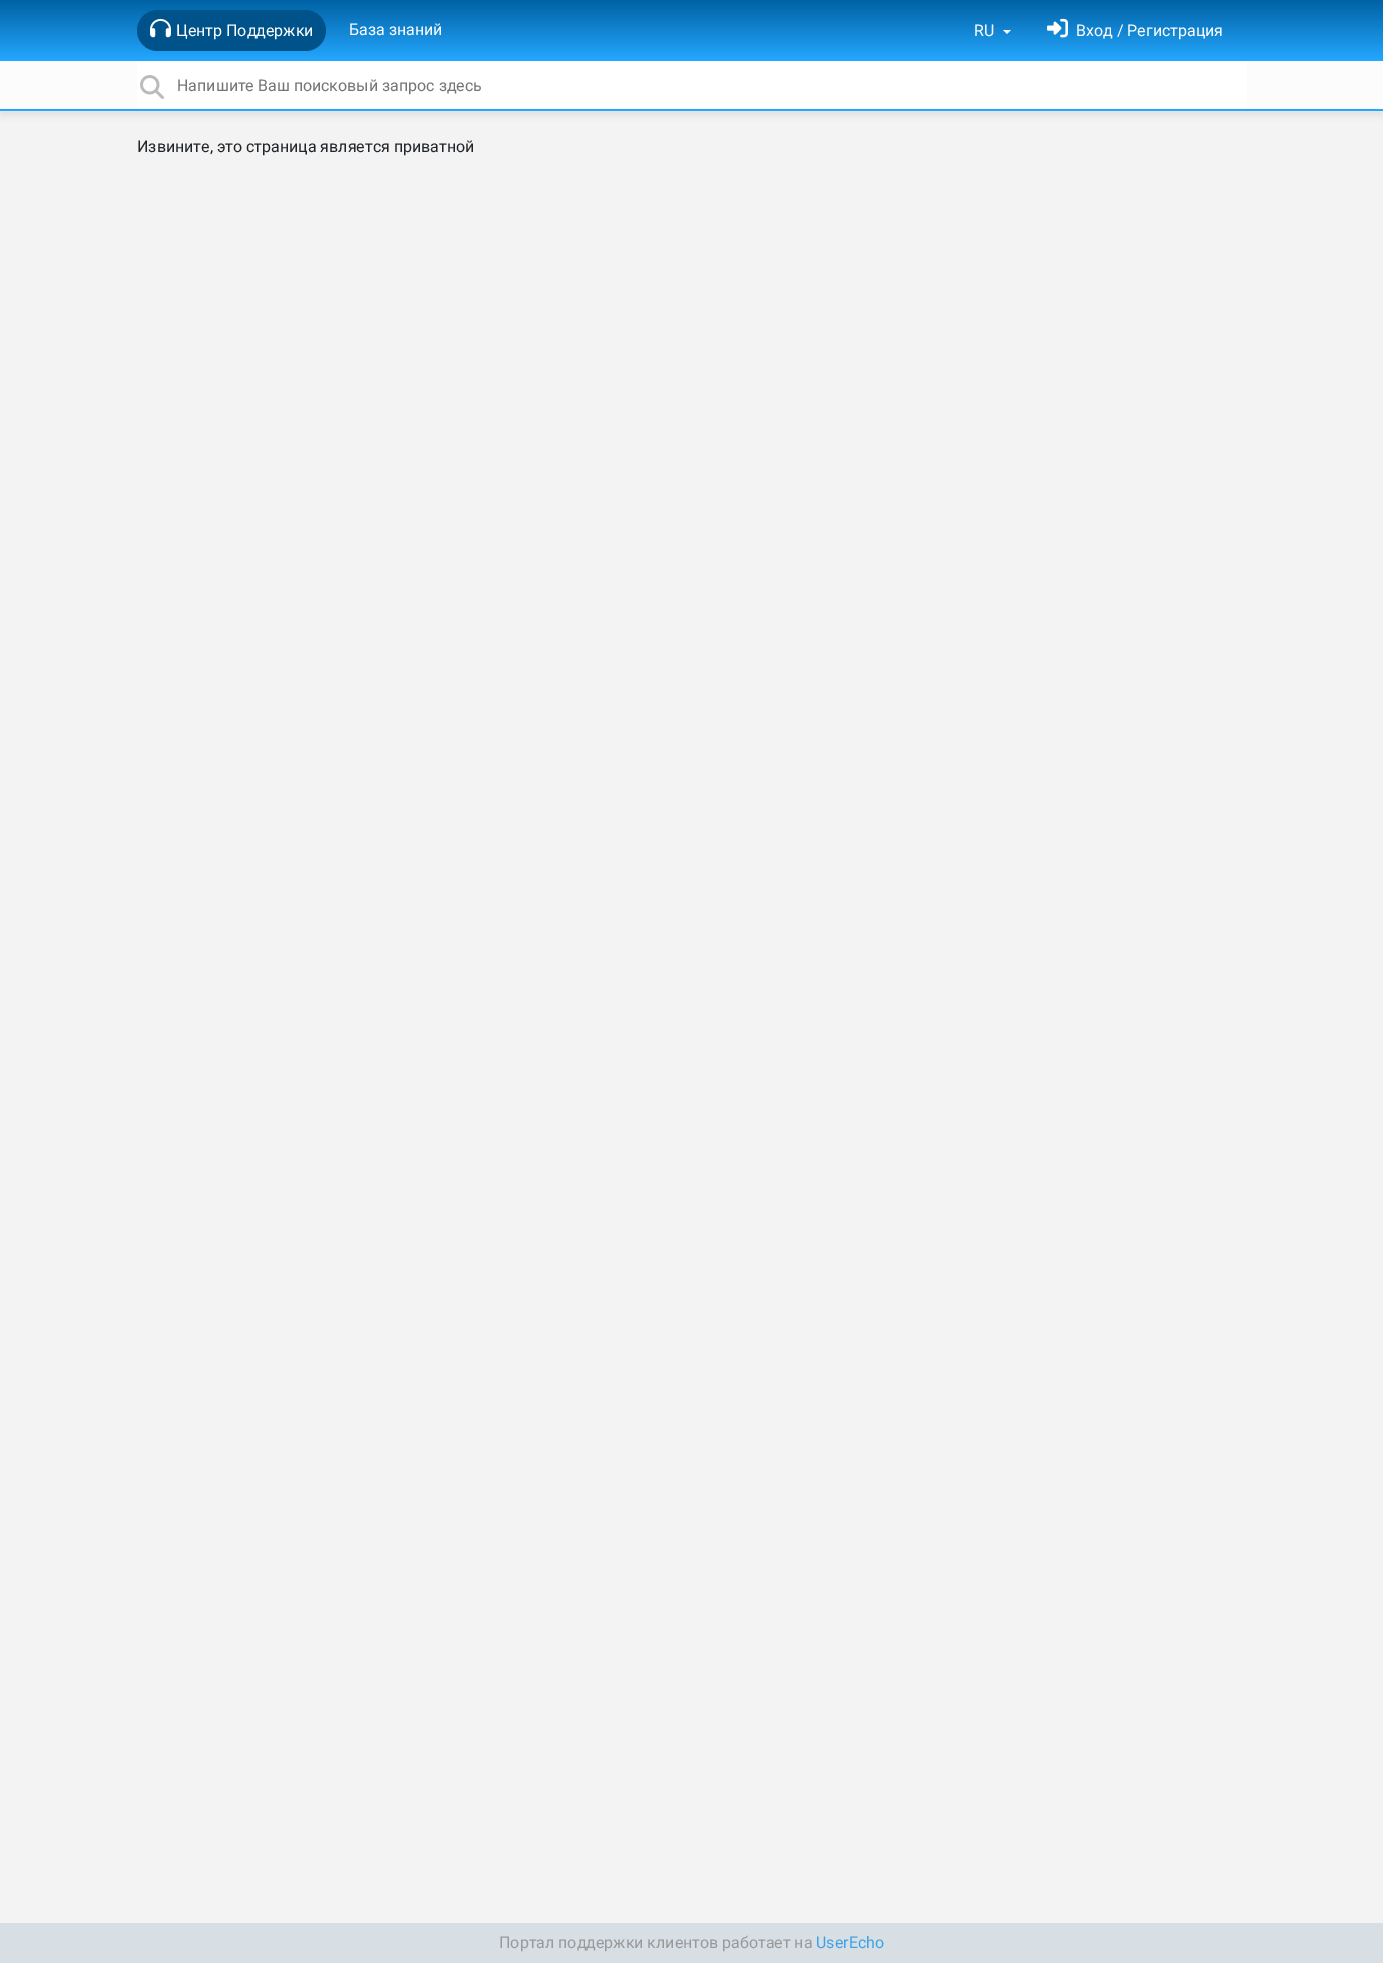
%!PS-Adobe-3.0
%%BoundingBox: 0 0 1383 1963
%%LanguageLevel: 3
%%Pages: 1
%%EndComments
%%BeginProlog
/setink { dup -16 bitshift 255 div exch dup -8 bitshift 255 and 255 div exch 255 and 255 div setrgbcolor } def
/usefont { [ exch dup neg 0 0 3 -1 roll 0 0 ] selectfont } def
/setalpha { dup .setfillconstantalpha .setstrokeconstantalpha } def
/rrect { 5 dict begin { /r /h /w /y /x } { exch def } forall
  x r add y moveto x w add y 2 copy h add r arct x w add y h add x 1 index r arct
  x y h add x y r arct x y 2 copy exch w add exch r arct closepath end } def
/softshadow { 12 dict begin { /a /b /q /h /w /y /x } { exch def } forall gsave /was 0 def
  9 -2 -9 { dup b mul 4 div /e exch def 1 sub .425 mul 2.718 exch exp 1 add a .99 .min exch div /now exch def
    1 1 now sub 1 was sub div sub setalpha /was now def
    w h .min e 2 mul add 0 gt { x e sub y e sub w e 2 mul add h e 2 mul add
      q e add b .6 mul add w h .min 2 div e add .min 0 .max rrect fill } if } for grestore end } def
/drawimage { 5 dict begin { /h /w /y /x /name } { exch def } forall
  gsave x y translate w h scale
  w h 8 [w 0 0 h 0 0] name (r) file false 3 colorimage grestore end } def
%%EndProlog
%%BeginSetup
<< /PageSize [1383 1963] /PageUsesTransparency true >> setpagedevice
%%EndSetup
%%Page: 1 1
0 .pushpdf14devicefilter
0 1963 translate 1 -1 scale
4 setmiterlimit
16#F3F3F3 setink
0 0 1383 1963 rectfill
gsave 0 0 moveto 1383 0 lineto 1383 61 lineto 0 61 lineto closepath clip newpath
<< /ShadingType 2 /ColorSpace /DeviceRGB /Coords [692 0 692 61] /Extend [true true] /Function << /FunctionType 2 /Domain [0 1] /C0 [0 0.384 0.643] /C1 [0.141 0.655 1] /N 1 >> >> shfill grestore
16#00538A setink
137 10 189 41 20.5 rrect fill
(img1.raw) 150 18 21 20 drawimage
/Roboto-Regular 16 usefont
16#FFFFFF setink
[
    [(Центр Поддержки) 176 36]
    [(База знаний) 349 35]
    [(RU) 974 36]
] { aload pop moveto show } forall
1003 30 moveto 1011 30 lineto 1007 34 lineto closepath fill
(img2.raw) 1047 18 21 20 drawimage
1076 36 moveto (Вход / Регистрация) show
16#646464 setink
0 66 1383 50 0 2.5 0.1 softshadow
[
    [0 61 1383 48 16#FCFCFC]
    [0 109 1383 2 16#24A7FF]
    [137 61 1110 48 16#FFFFFF]
] { aload pop setink rectfill } forall
(img3.raw) 140 75 24 24 drawimage
16#757575 setink
177 91 moveto (Напишите Ваш поисковый запрос здесь) show
16#212529 setink
137 152 moveto (Извините, это страница является приватной) show
16#D7DFE5 setink
0 1923 1383 40 rectfill
16#999999 setink
499 1948 moveto (Портал поддержки клиентов работает на) show
16#3FA2E4 setink
816 1948 moveto (UserEcho) show
.poppdf14devicefilter showpage
%%EOF
